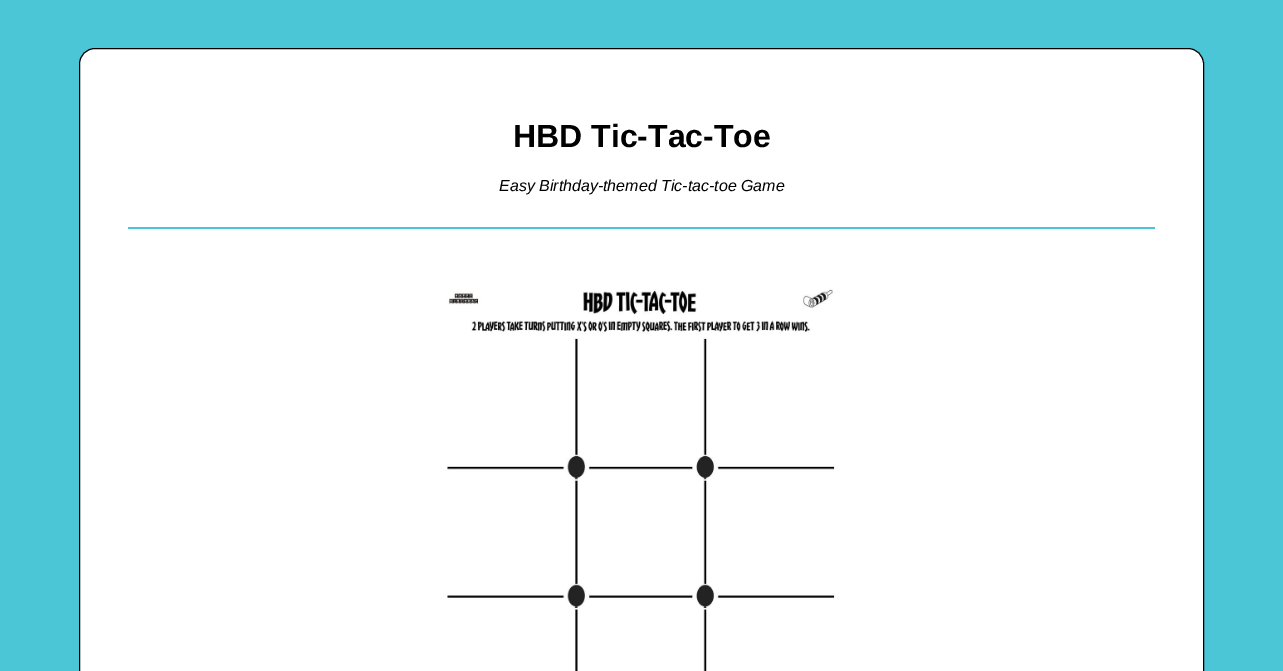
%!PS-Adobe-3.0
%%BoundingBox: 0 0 1283 671
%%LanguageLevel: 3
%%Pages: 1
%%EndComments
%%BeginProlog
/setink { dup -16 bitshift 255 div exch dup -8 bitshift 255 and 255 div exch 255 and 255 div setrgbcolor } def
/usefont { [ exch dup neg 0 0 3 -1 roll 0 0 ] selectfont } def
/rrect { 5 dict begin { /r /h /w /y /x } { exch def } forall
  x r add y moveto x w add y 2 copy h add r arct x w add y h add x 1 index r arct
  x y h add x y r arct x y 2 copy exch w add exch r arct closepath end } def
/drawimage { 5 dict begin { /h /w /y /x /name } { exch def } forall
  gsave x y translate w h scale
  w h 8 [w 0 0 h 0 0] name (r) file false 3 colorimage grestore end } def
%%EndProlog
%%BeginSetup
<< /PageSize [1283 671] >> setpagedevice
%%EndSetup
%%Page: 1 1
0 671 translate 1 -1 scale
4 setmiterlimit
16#4AC6D7 setink
0 0 1283 671 rectfill
16#FFFFFF setink
79.5 48.5 1124 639 15.5 rrect gsave fill grestore
16#000000 setink
stroke
/LiberationSans-Bold 32 usefont
513 147 moveto (HBD Tic-Tac-Toe) show
/LiberationSans-Italic 16 usefont
499 191 moveto (Easy Birthday-themed Tic-tac-toe Game) show
16#4AC6D7 setink
128 227 1027 2 rectfill
(img1.raw) 447 288 389 383 drawimage
showpage
%%EOF
